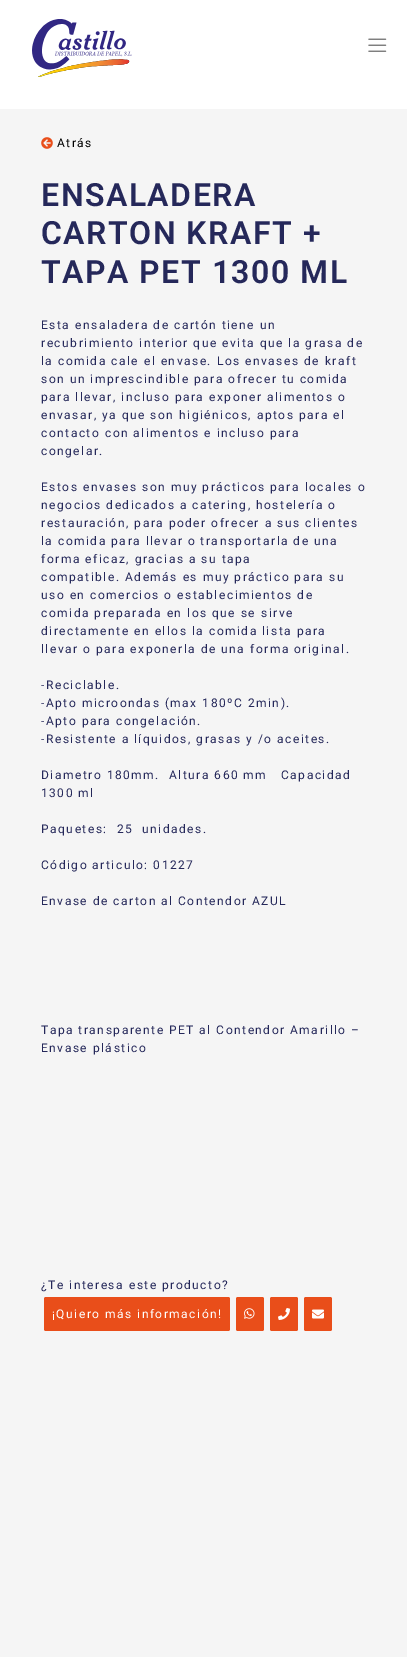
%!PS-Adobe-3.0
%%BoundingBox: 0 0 407 1657
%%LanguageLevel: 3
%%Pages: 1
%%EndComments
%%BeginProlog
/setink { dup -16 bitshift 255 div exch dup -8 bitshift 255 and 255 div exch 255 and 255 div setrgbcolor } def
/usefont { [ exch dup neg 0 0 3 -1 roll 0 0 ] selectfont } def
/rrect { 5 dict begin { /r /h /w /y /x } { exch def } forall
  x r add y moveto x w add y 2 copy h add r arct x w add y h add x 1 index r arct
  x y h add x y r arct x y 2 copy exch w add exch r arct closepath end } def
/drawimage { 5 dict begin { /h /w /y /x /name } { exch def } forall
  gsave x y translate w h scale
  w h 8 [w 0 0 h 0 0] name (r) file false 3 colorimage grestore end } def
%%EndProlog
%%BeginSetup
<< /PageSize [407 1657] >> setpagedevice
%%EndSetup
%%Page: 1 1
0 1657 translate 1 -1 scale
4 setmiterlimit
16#F5F5F5 setink
0 0 407 1657 rectfill
16#FFFFFF setink
0 0 407 109 rectfill
(img1.raw) 32 19 100 58 drawimage
(img2.raw) 368 38 19 14 drawimage
(img3.raw) 41 137 12 12 drawimage
/Roboto-Regular 12 usefont
16#000000 setink
57 147 moveto 1.5 0 (Atrás) ashow
/Roboto-SemiBold 32 usefont
16#25285A setink
41 206 moveto 1.5 0 (ENSALADERA) ashow
41 244 moveto 1.5 0 (CARTON KRAFT +) ashow
41 283 moveto 1.5 0 (TAPA PET 1300 ML) ashow
/Roboto-Regular 12 usefont
41 329 moveto 1.5 0 (Esta ensaladera de cartón tiene un) ashow
41 347 moveto 1.5 0 (recubrimiento interior que evita que la grasa de) ashow
41 365 moveto 1.5 0 (la comida cale el envase. Los envases de kraft) ashow
41 383 moveto 1.5 0 (son un imprescindible para ofrecer tu comida) ashow
41 401 moveto 1.5 0 (para llevar, incluso para exponer alimentos o) ashow
41 419 moveto 1.5 0 (envasar, ya que son higiénicos, aptos para el) ashow
41 437 moveto 1.5 0 (contacto con alimentos e incluso para) ashow
41 455 moveto 1.5 0 (congelar.) ashow
41 491 moveto 1.5 0 (Estos envases son muy prácticos para locales o) ashow
41 509 moveto 1.5 0 (negocios dedicados a catering, hostelería o) ashow
41 527 moveto 1.5 0 (restauración, para poder ofrecer a sus clientes) ashow
41 545 moveto 1.5 0 (la comida para llevar o transportarla de una) ashow
41 563 moveto 1.5 0 (forma eficaz, gracias a su tapa) ashow
41 581 moveto 1.5 0 (compatible. Además es muy práctico para su) ashow
41 599 moveto 1.5 0 (uso en comercios o establecimientos de) ashow
41 617 moveto 1.5 0 (comida preparada en los que se sirve) ashow
41 635 moveto 1.5 0 (directamente en ellos la comida lista para) ashow
41 653 moveto 1.5 0 (llevar o para exponerla de una forma original.) ashow
41 689 moveto 1.5 0 (-Reciclable.) ashow
41 707 moveto 1.5 0 (-Apto microondas \(max 180ºC 2min\).) ashow
41 725 moveto 1.5 0 (-Apto para congelación.) ashow
41 743 moveto 1.5 0 (-Resistente a líquidos, grasas y /o aceites.) ashow
41 779 moveto 1.5 0 (Diametro 180mm.  Altura 660 mm   Capacidad) ashow
41 797 moveto 1.5 0 (1300 ml) ashow
41 833 moveto 1.5 0 (Paquetes:  25  unidades.) ashow
41 869 moveto 1.5 0 (Código articulo: 01227) ashow
41 905 moveto 1.5 0 (Envase de carton al Contendor AZUL) ashow
41 1034 moveto 1.5 0 (Tapa transparente PET al Contendor Amarillo –) ashow
41 1052 moveto 1.5 0 (Envase plástico) ashow
41 1289 moveto 1.5 0 (¿Te interesa este producto?) ashow
16#E94E1A setink
44 1297 186 34 2 rrect fill
16#FFFFFF setink
52 1318 moveto 1.5 0 (¡Quiero más información!) ashow
16#E94E1A setink
236 1297 28 34 2 rrect fill
(img4.raw) 244 1308 11 11 drawimage
270 1297 28 34 2 rrect fill
(img5.raw) 278 1308 12 12 drawimage
304 1297 28 34 2 rrect fill
(img6.raw) 312 1309 12 10 drawimage
showpage
%%EOF
